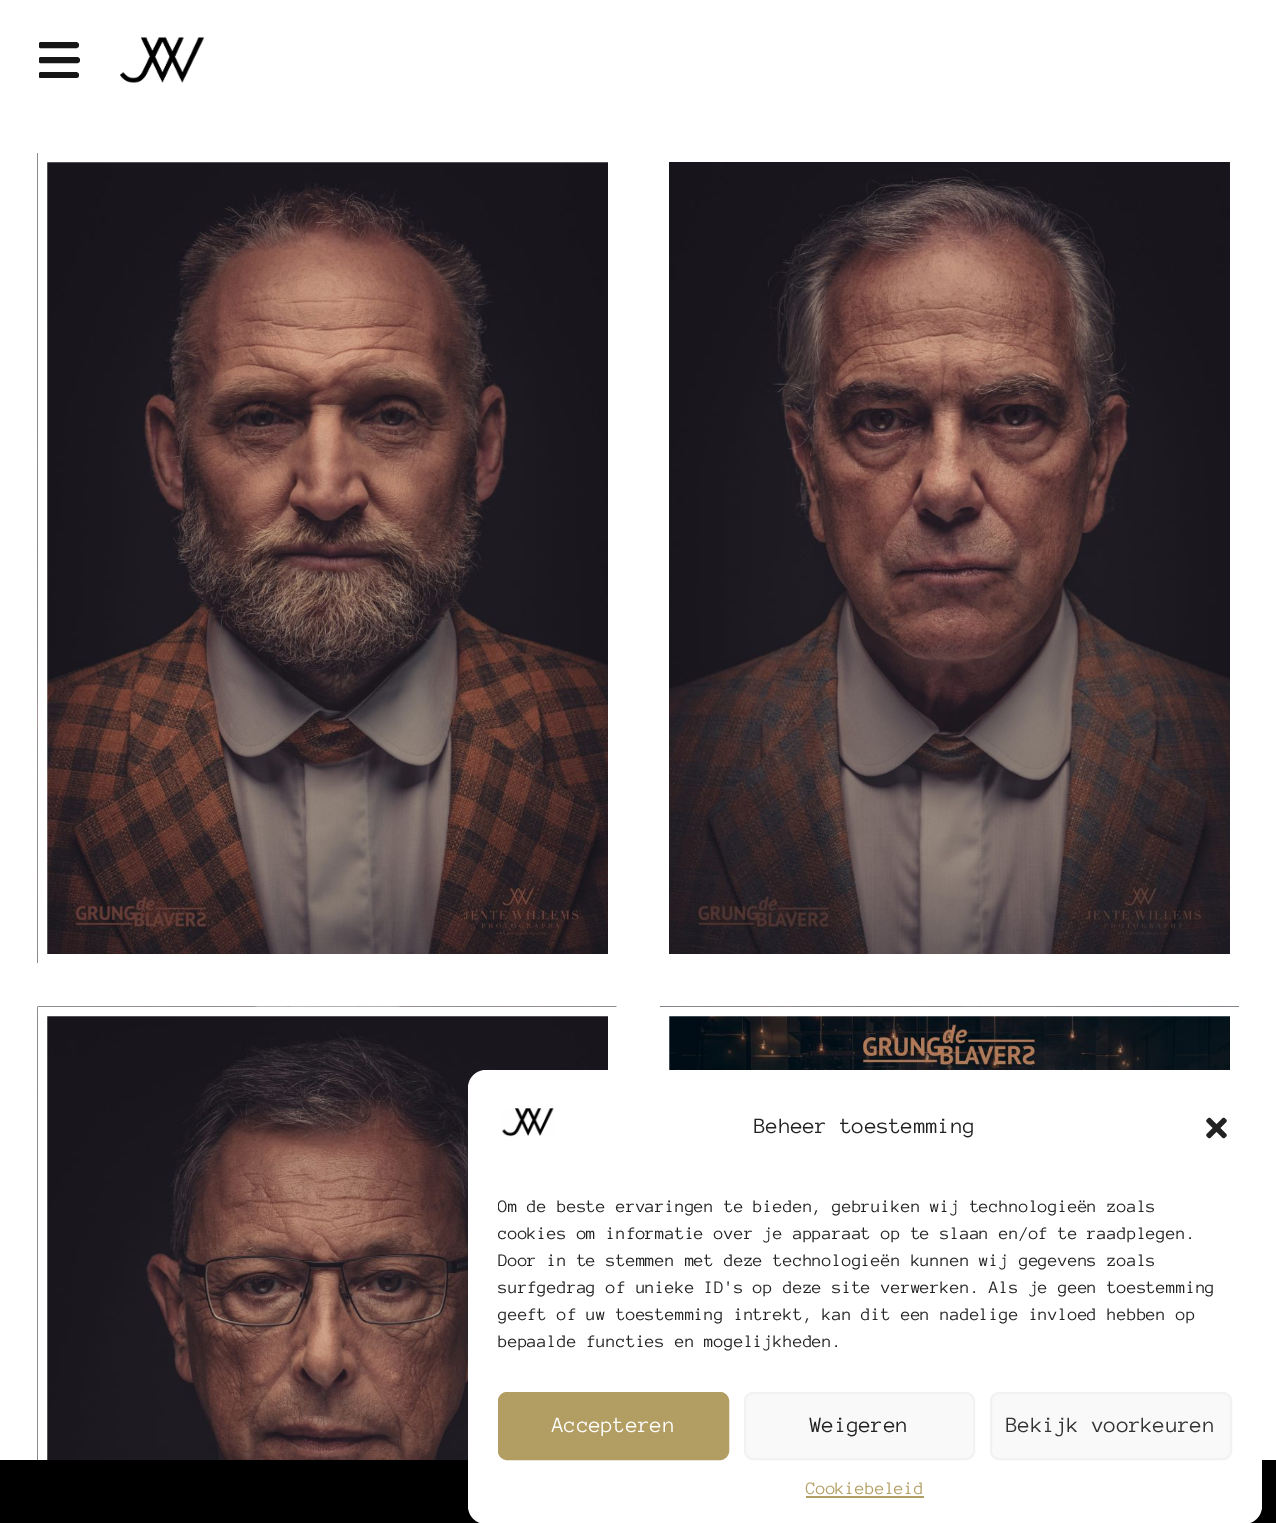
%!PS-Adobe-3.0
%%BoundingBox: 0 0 1276 1523
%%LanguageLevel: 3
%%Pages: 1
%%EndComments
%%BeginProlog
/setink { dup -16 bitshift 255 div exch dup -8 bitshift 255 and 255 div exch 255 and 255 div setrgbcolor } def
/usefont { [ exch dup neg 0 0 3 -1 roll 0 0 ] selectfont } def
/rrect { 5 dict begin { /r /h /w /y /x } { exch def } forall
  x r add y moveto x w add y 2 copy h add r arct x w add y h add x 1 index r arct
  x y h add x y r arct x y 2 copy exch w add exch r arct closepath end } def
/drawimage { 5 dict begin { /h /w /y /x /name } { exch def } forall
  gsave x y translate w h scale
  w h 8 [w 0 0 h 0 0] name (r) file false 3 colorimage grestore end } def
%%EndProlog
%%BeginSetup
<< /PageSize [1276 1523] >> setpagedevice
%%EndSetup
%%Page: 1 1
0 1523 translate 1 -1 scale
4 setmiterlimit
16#FFFFFF setink
0 0 1276 1523 rectfill
gsave
39 42 57 36 rectclip
16#161616 setink
6 setlinewidth
1 setlinecap
1 setlinejoin
41 45 moveto 76 45 lineto 41 60 moveto 77 60 lineto 41 75 moveto 76 75 lineto stroke
grestore
(img1.raw) 120 37 84 46 drawimage
(img2.raw) 37 153 571 810 drawimage
9 setlinewidth
42.5 157.5 570 801 rectstroke
(img3.raw) 669 162 561 792 drawimage
(img4.raw) 37 1006 580 454 drawimage
42.5 1011.5 570 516 rectstroke
(img5.raw) 660 1006 579 64 drawimage
664.5 1011.5 570 354 rectstroke
16#000000 setink
0 1460 1276 63 rectfill
16#FFFFFF setink
468 1070 794 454 18 rrect fill
(img6.raw) 501 1108 53 29 drawimage
/AnonymousPro-Regular 22.5 usefont
16#222222 setink
754 1133 moveto (Beheer toestemming) show
(img7.raw) 1206 1117 21 22 drawimage
gsave
498 1193 734 169 rectclip
/AnonymousPro-Regular 18 usefont
498 1212 moveto (Om de beste ervaringen te bieden, gebruiken wij technologieën zoals) show
grestore
/AnonymousPro-Regular 18 usefont
[
    [(cookies om informatie over je apparaat op te slaan en/of te raadplegen.) 498 1239]
    [(Door in te stemmen met deze technologieën kunnen wij gegevens zoals) 498 1266]
    [(surfgedrag of unieke ID's op deze site verwerken. Als je geen toestemming) 498 1293]
    [(geeft of uw toestemming intrekt, kan dit een nadelige invloed hebben op) 498 1320]
    [(bepaalde functies en mogelijkheden.) 498 1347]
] { aload pop moveto show } forall
16#B29E62 setink
499 1393 229 66 8 rrect gsave fill grestore
2 setlinewidth
stroke
/AnonymousPro-Regular 22.5 usefont
16#FFFFFF setink
552 1432 moveto (Accepteren) show
16#F9F9F9 setink
745 1393 229 66 8 rrect gsave fill grestore
16#F2F2F2 setink
stroke
16#222222 setink
810 1432 moveto (Weigeren) show
16#F9F9F9 setink
991 1393 240 66 8 rrect gsave fill grestore
16#F2F2F2 setink
stroke
16#333333 setink
1006 1432 moveto (Bekijk voorkeuren) show
/AnonymousPro-Regular 18 usefont
16#B29E62 setink
806 1494 moveto (Cookiebeleid) show
806 1496 118 2 rectfill
showpage
%%EOF
